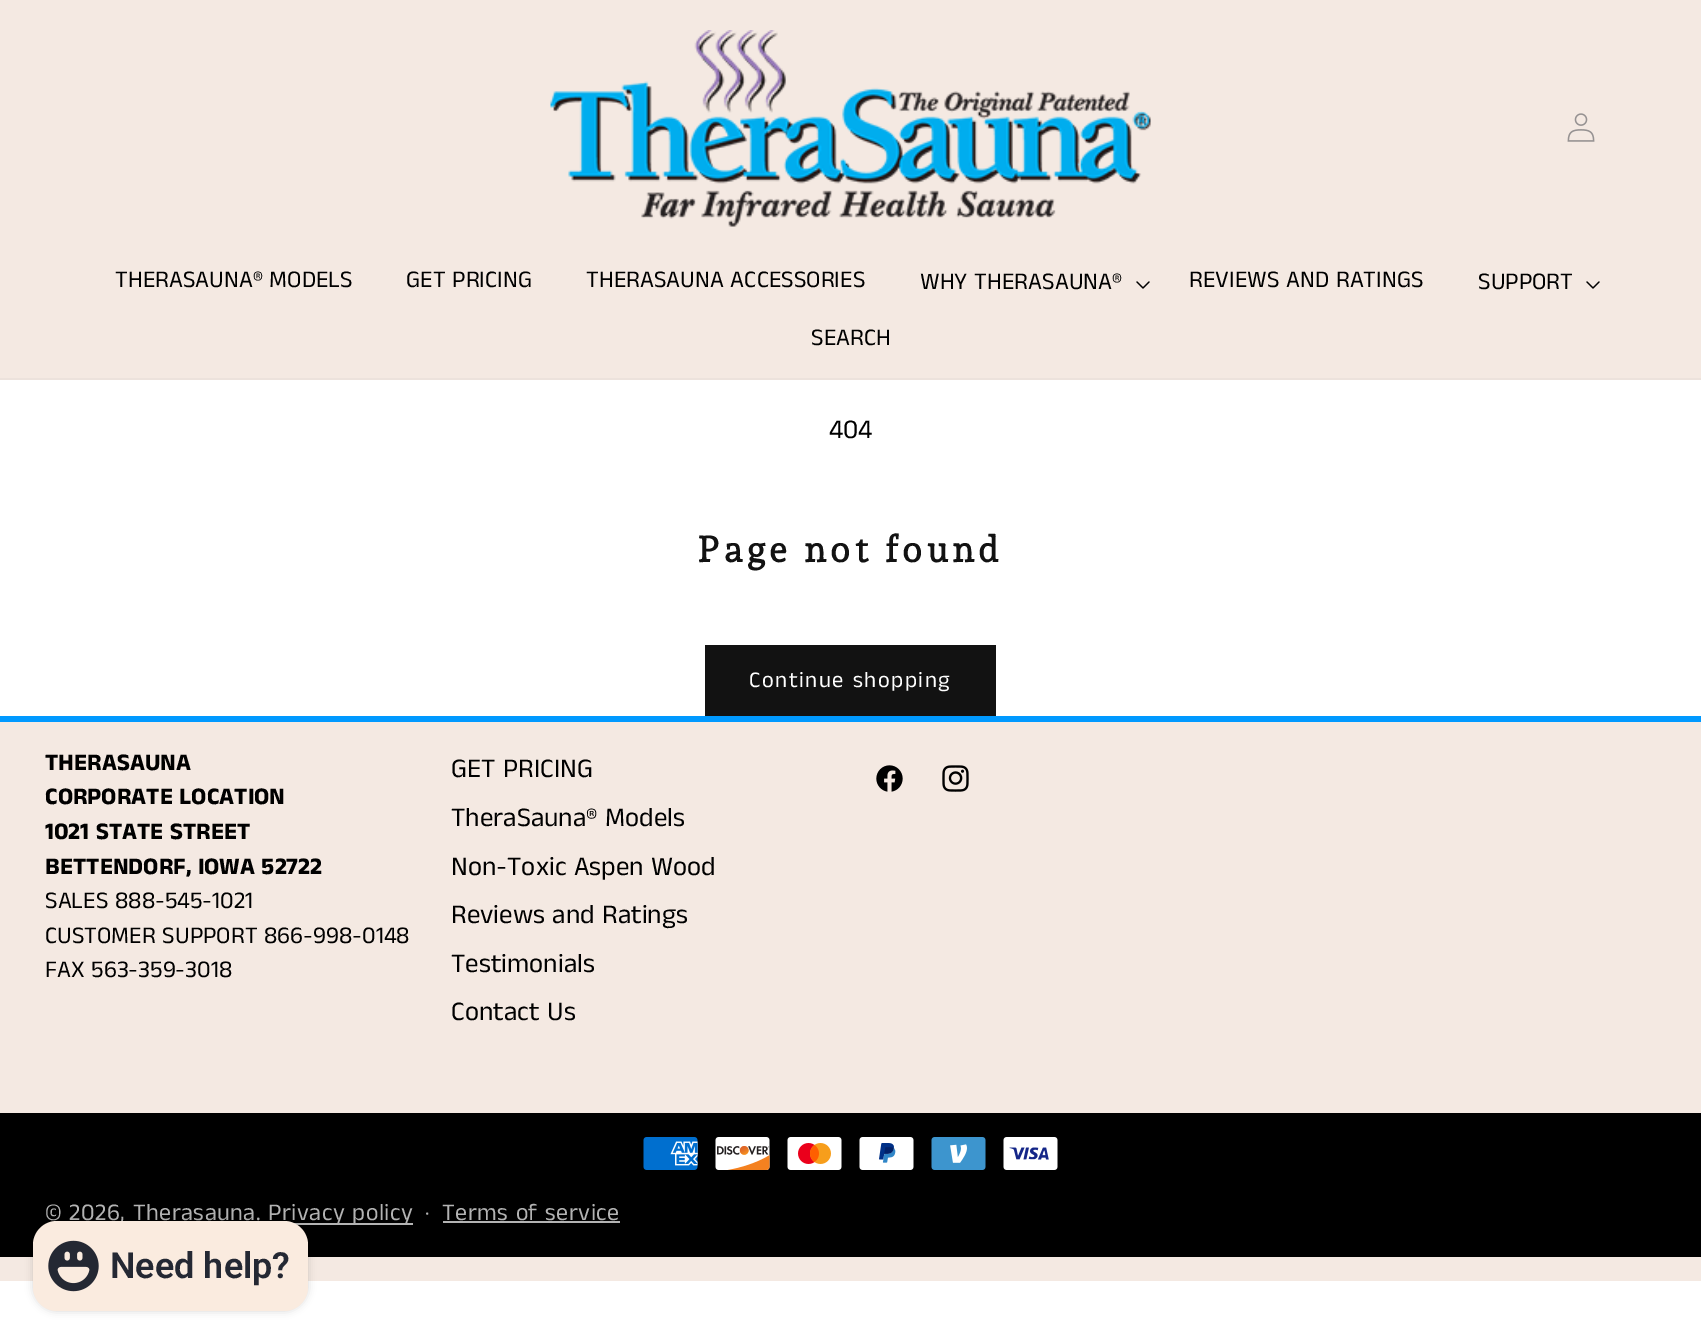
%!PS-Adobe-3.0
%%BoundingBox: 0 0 1701 1342
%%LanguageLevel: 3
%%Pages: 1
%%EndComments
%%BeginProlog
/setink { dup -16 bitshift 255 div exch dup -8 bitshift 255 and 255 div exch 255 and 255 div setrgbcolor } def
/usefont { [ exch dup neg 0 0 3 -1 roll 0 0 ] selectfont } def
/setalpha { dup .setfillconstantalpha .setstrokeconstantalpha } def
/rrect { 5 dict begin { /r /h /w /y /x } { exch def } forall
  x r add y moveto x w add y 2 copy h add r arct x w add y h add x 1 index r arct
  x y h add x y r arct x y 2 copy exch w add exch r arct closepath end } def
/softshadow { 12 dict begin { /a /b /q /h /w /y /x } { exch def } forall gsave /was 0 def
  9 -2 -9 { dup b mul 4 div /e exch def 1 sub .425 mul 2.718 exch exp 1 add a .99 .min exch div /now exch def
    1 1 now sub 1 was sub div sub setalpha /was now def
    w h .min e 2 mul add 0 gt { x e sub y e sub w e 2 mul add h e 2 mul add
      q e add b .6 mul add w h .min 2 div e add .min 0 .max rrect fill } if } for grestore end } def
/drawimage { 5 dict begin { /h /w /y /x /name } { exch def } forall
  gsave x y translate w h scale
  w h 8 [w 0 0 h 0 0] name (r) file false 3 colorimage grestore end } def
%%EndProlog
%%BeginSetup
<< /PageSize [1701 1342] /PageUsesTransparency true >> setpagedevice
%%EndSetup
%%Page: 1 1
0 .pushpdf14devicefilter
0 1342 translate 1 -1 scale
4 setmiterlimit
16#FFFFFF setink
0 0 1701 1342 rectfill
16#F4E9E2 setink
0 0 1701 378 rectfill
16#ECE2DC setink
0 378 1701 2 rectfill
(img1.raw) 550 30 601 197 drawimage
(img2.raw) 1567 113 28 29 drawimage
/AnekTamil-Regular 24 usefont
16#000000 setink
[
    [(THERASAUNA® MODELS) 115 287]
    [(GET PRICING) 406 287]
    [(THERASAUNA ACCESSORIES) 586 287]
    [(WHY THERASAUNA®) 920 289]
] { aload pop moveto show } forall
(img3.raw) 1136 281 14 8 drawimage
1189 287 moveto (REVIEWS AND RATINGS) show
1478 289 moveto (SUPPORT) show
(img3.raw) 1586 281 14 8 drawimage
811 345 moveto (SEARCH) show
/AnekTamil-Regular 27 usefont
829 438 moveto (404) show
/AndadaPro-Bold 36 usefont
16#121212 setink
697 562 moveto 4.25 0 (Page not found) ashow
705 645 291 71 rectfill
/AnekTamil-Regular 22.5 usefont
16#FFFFFF setink
749 687 moveto 1.5 0 (Continue shopping) ashow
16#F4E9E2 setink
0 722 1701 559 rectfill
16#0099FF setink
0 716 1701 6 rectfill
/AnekTamil-Bold 24 usefont
16#000000 setink
[
    [(THERASAUNA) 45 770]
    [(CORPORATE LOCATION) 45 804]
    [(1021 STATE STREET) 45 839]
    [(BETTENDORF, IOWA 52722) 45 874]
] { aload pop moveto show } forall
/AnekTamil-Regular 24 usefont
[
    [(SALES 888-545-1021) 45 908]
    [(CUSTOMER SUPPORT 866-998-0148) 45 943]
    [(FAX 563-359-3018) 45 977]
] { aload pop moveto show } forall
/AnekTamil-Regular 27 usefont
[
    [(GET PRICING) 451 777]
    [(TheraSauna® Models) 451 826]
    [(Non-Toxic Aspen Wood) 451 875]
    [(Reviews and Ratings) 451 923]
    [(Testimonials) 451 972]
    [(Contact Us) 451 1020]
] { aload pop moveto show } forall
(img4.raw) 876 765 27 27 drawimage
(img5.raw) 942 765 27 27 drawimage
0 1113 1701 144 rectfill
(img6.raw) 643 1137 55 33 drawimage
(img7.raw) 715 1137 55 33 drawimage
(img8.raw) 787 1137 55 33 drawimage
(img9.raw) 859 1137 55 33 drawimage
(img10.raw) 931 1137 55 33 drawimage
(img11.raw) 1003 1137 55 33 drawimage
/AnekTamil-Regular 24 usefont
16#B3B3B3 setink
45 1220 moveto 0.5 0 (© 2026, Therasauna.) ashow
293 1223 120 2 rectfill
268 1220 moveto 0.5 0 (Privacy policy) ashow
425 1220 moveto 1 0 (·) ashow
442 1220 moveto 0.5 0 (Terms of service) ashow
443 1221 177 2 rectfill
16#000000 setink
33 1221 275 90 24 4 0.15 softshadow
16#FAEBDF setink
33 1221 275 90 24 rrect fill
(img12.raw) 48 1240 51 52 drawimage
/Roboto-SemiBold 36 usefont
16#242833 setink
110 1278 moveto (Need help?) show
.poppdf14devicefilter showpage
%%EOF
